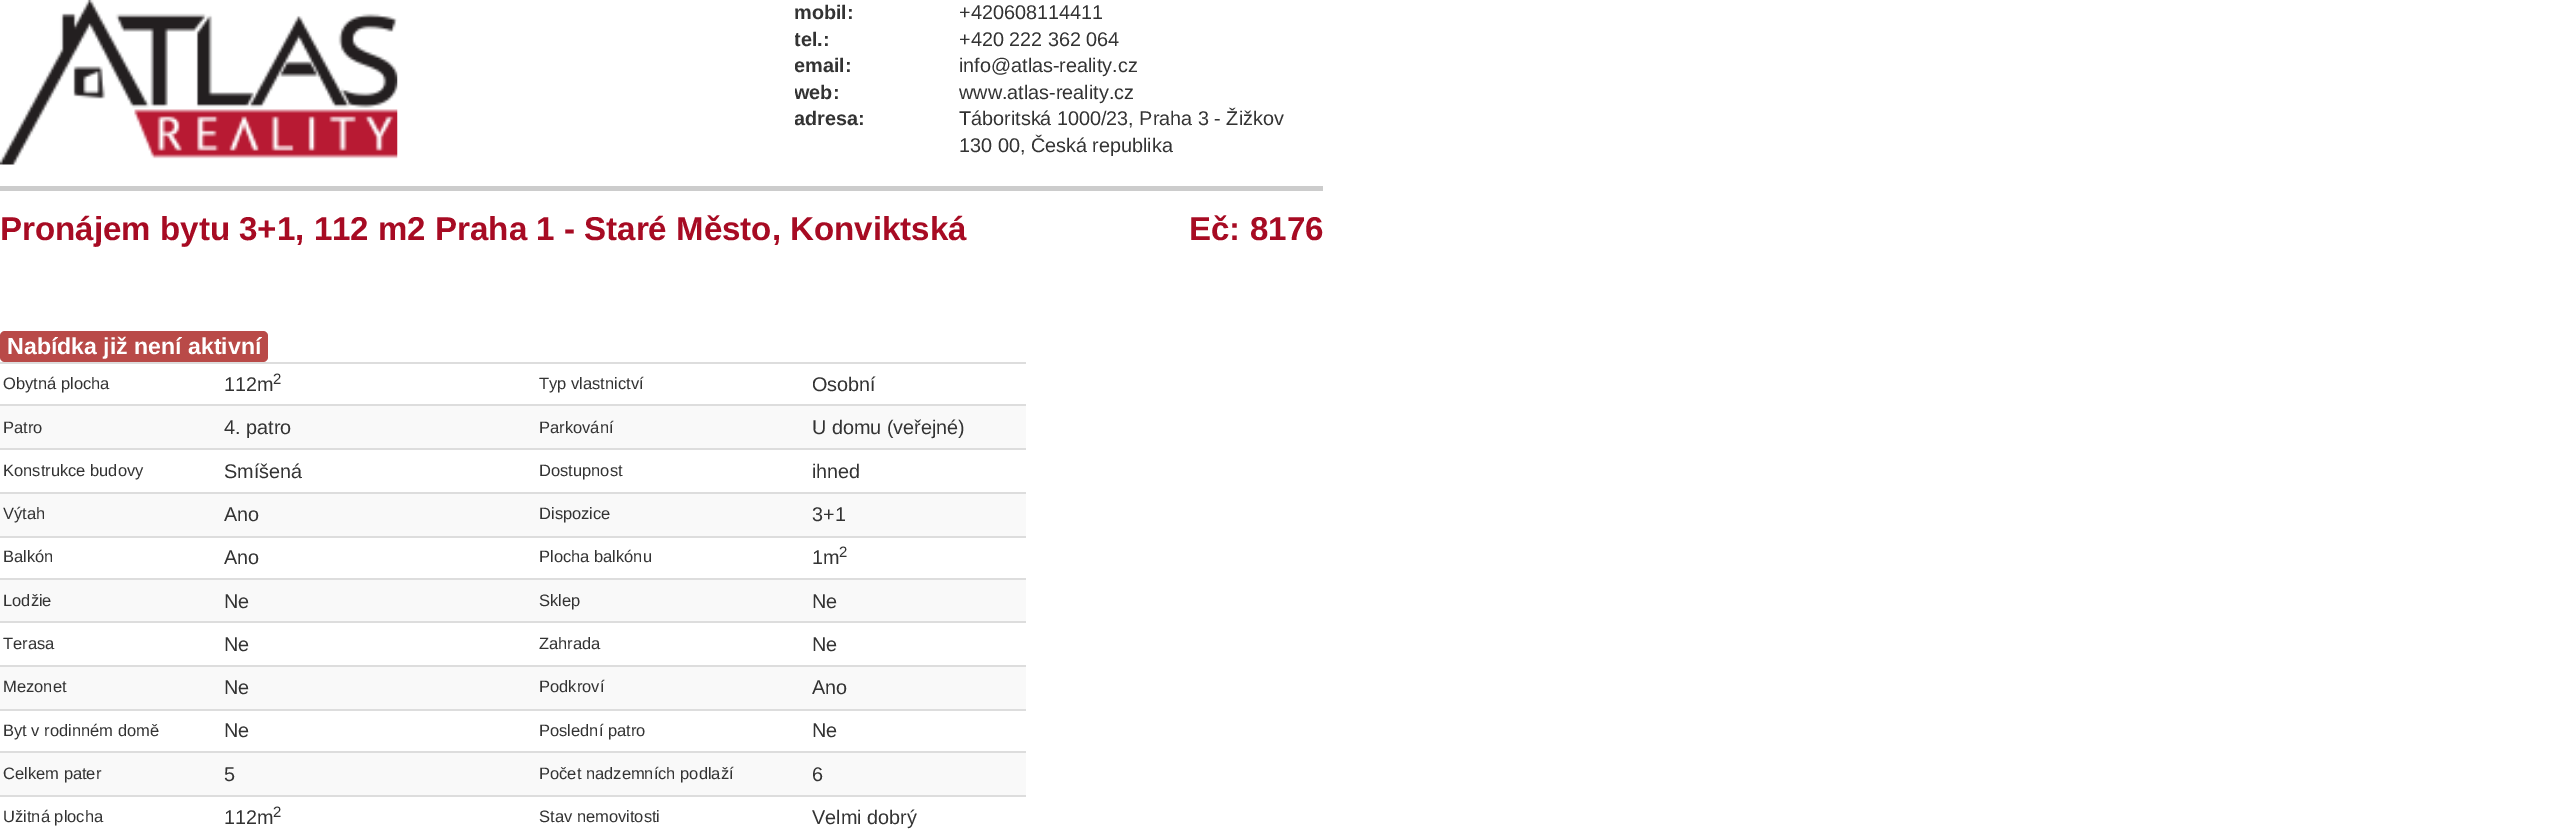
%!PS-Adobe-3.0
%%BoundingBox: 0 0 2558 833
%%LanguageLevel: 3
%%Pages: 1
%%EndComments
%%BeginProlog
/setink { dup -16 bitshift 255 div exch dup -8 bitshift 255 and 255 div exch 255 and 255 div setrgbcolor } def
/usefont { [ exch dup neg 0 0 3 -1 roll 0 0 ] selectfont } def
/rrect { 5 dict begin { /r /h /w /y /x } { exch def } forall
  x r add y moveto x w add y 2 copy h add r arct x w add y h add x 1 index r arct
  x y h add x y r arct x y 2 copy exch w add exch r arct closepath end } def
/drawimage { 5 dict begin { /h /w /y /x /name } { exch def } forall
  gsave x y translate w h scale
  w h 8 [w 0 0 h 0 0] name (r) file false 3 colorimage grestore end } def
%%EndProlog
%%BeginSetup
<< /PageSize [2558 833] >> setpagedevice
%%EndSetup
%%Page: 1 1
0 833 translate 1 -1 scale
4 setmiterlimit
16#FFFFFF setink
0 0 2558 833 rectfill
16#CCCCCC setink
0 186 1323 5 rectfill
(img1.raw) 0 0 398 165 drawimage
/LiberationSans-Bold 19.8 usefont
16#333333 setink
794 19 moveto (mobil:) show
/LiberationSans-Regular 19.8 usefont
959 19 moveto (+420608114411) show
gsave
795 26 528 27 rectclip
/LiberationSans-Bold 19.8 usefont
794 46 moveto (tel.:) show
grestore
959 46 moveto (+420 222 362 064) show
gsave
795 53 528 26 rectclip
/LiberationSans-Bold 19.8 usefont
794 72 moveto (email:) show
grestore
959 72 moveto (info@atlas-reality.cz) show
gsave
795 79 528 28 rectclip
/LiberationSans-Bold 19.8 usefont
794 99 moveto (web:) show
grestore
959 99 moveto (www.atlas-reality.cz) show
gsave
795 107 528 52 rectclip
/LiberationSans-Bold 19.8 usefont
794 125 moveto (adresa:) show
grestore
959 125 moveto (Táboritská 1000/23, Praha 3 - Žižkov) show
959 152 moveto (130 00, Česká republika) show
/LiberationSans-Bold 33.1 usefont
16#A70B23 setink
0 240 moveto (Pronájem bytu 3+1, 112 m2 Praha 1 - Staré Město, Konviktská) show
1189 240 moveto (Eč: 8176) show
16#B94A48 setink
0 331 268 31 5 rrect fill
/LiberationSans-Bold 23.1 usefont
16#FFFFFF setink
7 354 moveto (Nabídka již není aktivní) show
/LiberationSans-Regular 16.5 usefont
16#333333 setink
3 389 moveto (Obytná plocha) show
/LiberationSans-Regular 19.8 usefont
224 391 moveto (112m) show
/LiberationSans-Regular 15 usefont
273 384 moveto (2) show
/LiberationSans-Regular 16.5 usefont
539 389 moveto (Typ vlastnictví) show
16#DDDDDD setink
0 362 1026 2 rectfill
/LiberationSans-Regular 19.8 usefont
16#333333 setink
812 391 moveto (Osobní) show
16#F9F9F9 setink
0 406 1026 42 rectfill
/LiberationSans-Regular 16.5 usefont
16#333333 setink
3 433 moveto (Patro) show
/LiberationSans-Regular 19.8 usefont
224 434 moveto (4. patro) show
/LiberationSans-Regular 16.5 usefont
539 433 moveto (Parkování) show
16#DDDDDD setink
0 404 1026 2 rectfill
/LiberationSans-Regular 19.8 usefont
16#333333 setink
812 434 moveto (U domu \(veřejné\)) show
/LiberationSans-Regular 16.5 usefont
3 476 moveto (Konstrukce budovy) show
/LiberationSans-Regular 19.8 usefont
224 478 moveto (Smíšená) show
/LiberationSans-Regular 16.5 usefont
539 476 moveto (Dostupnost) show
16#DDDDDD setink
0 448 1026 2 rectfill
/LiberationSans-Regular 19.8 usefont
16#333333 setink
812 478 moveto (ihned) show
16#F9F9F9 setink
0 494 1026 42 rectfill
/LiberationSans-Regular 16.5 usefont
16#333333 setink
3 519 moveto (Výtah) show
/LiberationSans-Regular 19.8 usefont
224 521 moveto (Ano) show
/LiberationSans-Regular 16.5 usefont
539 519 moveto (Dispozice) show
16#DDDDDD setink
0 492 1026 2 rectfill
/LiberationSans-Regular 19.8 usefont
16#333333 setink
812 521 moveto (3+1) show
/LiberationSans-Regular 16.5 usefont
3 562 moveto (Balkón) show
/LiberationSans-Regular 19.8 usefont
224 564 moveto (Ano) show
/LiberationSans-Regular 16.5 usefont
539 562 moveto (Plocha balkónu) show
16#DDDDDD setink
0 536 1026 2 rectfill
/LiberationSans-Regular 19.8 usefont
16#333333 setink
812 564 moveto (1m) show
/LiberationSans-Regular 15 usefont
839 557 moveto (2) show
16#F9F9F9 setink
0 580 1026 41 rectfill
/LiberationSans-Regular 16.5 usefont
16#333333 setink
3 606 moveto (Lodžie) show
/LiberationSans-Regular 19.8 usefont
224 608 moveto (Ne) show
/LiberationSans-Regular 16.5 usefont
539 606 moveto (Sklep) show
16#DDDDDD setink
0 578 1026 2 rectfill
/LiberationSans-Regular 19.8 usefont
16#333333 setink
812 608 moveto (Ne) show
/LiberationSans-Regular 16.5 usefont
3 649 moveto (Terasa) show
/LiberationSans-Regular 19.8 usefont
224 651 moveto (Ne) show
/LiberationSans-Regular 16.5 usefont
539 649 moveto (Zahrada) show
16#DDDDDD setink
0 621 1026 2 rectfill
/LiberationSans-Regular 19.8 usefont
16#333333 setink
812 651 moveto (Ne) show
16#F9F9F9 setink
0 667 1026 42 rectfill
/LiberationSans-Regular 16.5 usefont
16#333333 setink
3 692 moveto (Mezonet) show
/LiberationSans-Regular 19.8 usefont
224 694 moveto (Ne) show
/LiberationSans-Regular 16.5 usefont
539 692 moveto (Podkroví) show
16#DDDDDD setink
0 665 1026 2 rectfill
/LiberationSans-Regular 19.8 usefont
16#333333 setink
812 694 moveto (Ano) show
/LiberationSans-Regular 16.5 usefont
3 736 moveto (Byt v rodinném domě) show
/LiberationSans-Regular 19.8 usefont
224 737 moveto (Ne) show
/LiberationSans-Regular 16.5 usefont
539 736 moveto (Poslední patro) show
16#DDDDDD setink
0 709 1026 2 rectfill
/LiberationSans-Regular 19.8 usefont
16#333333 setink
812 737 moveto (Ne) show
16#F9F9F9 setink
0 753 1026 42 rectfill
/LiberationSans-Regular 16.5 usefont
16#333333 setink
3 779 moveto (Celkem pater) show
/LiberationSans-Regular 19.8 usefont
224 781 moveto (5) show
/LiberationSans-Regular 16.5 usefont
539 779 moveto (Počet nadzemních podlaží) show
16#DDDDDD setink
0 751 1026 2 rectfill
/LiberationSans-Regular 19.8 usefont
16#333333 setink
812 781 moveto (6) show
/LiberationSans-Regular 16.5 usefont
3 822 moveto (Užitná plocha) show
/LiberationSans-Regular 19.8 usefont
224 824 moveto (112m) show
/LiberationSans-Regular 15 usefont
273 817 moveto (2) show
/LiberationSans-Regular 16.5 usefont
539 822 moveto (Stav nemovitosti) show
16#DDDDDD setink
0 795 1026 2 rectfill
/LiberationSans-Regular 19.8 usefont
16#333333 setink
812 824 moveto (Velmi dobrý) show
showpage
%%EOF
